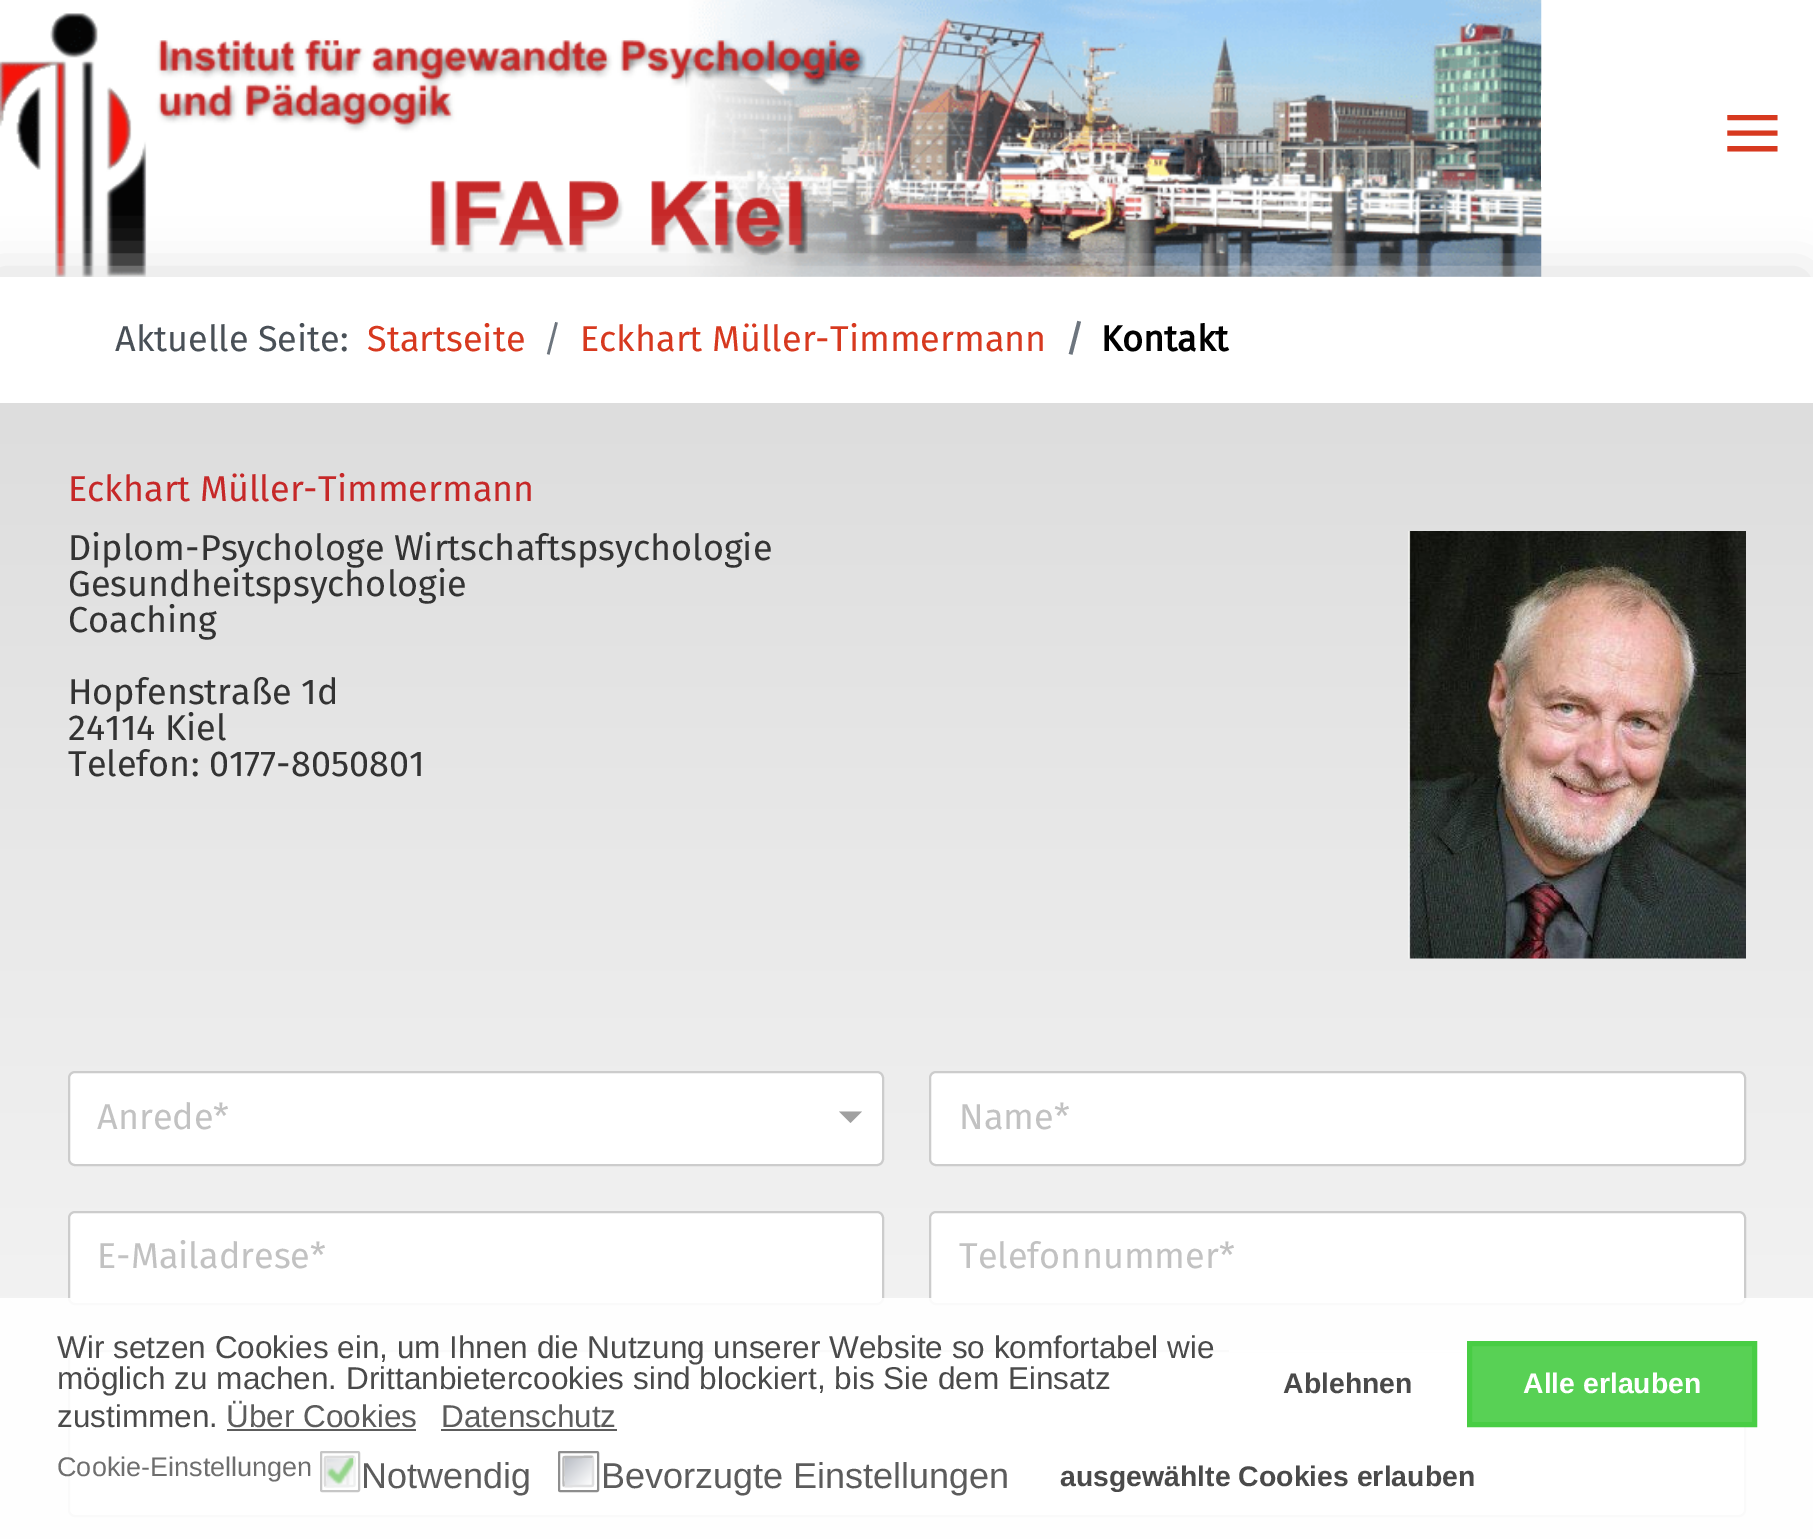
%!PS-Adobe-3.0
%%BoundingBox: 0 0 1813 1539
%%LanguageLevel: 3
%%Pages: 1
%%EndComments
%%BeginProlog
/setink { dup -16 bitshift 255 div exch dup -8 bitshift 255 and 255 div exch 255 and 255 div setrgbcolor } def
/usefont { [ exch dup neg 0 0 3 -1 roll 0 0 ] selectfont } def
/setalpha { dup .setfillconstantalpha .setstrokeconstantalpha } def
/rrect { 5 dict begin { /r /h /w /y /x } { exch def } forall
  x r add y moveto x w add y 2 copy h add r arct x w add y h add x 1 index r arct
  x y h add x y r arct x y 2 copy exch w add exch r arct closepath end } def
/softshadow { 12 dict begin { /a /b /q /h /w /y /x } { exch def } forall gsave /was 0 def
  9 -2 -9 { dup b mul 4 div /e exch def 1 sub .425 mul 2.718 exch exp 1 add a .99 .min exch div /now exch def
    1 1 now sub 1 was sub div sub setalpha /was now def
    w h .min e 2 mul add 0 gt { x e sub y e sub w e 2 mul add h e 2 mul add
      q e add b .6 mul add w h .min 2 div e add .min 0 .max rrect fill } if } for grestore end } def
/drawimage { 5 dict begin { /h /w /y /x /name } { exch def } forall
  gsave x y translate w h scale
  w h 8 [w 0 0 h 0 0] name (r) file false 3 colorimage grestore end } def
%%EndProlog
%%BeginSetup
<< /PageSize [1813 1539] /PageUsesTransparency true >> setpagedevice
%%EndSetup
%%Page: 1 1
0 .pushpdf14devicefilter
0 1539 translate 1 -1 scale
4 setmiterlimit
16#FFFFFF setink
0 0 1813 1539 rectfill
(img1.raw) 0 0 1542 277 drawimage
1541 90 1 97 rectfill
/LiberationSerif-Regular 108 usefont
16#D7391F setink
1722 169 moveto (≡) show
gsave 0 403 moveto 1813 403 lineto 1813 1539 lineto 0 1539 lineto closepath clip newpath
<< /ShadingType 2 /ColorSpace /DeviceRGB /Coords [0 403 0 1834] /Extend [true true] /Function << /FunctionType 2 /Domain [0 1] /C0 [0.867 0.867 0.867] /C1 [1 1 1] /N 1 >> >> shfill grestore
16#DDDDDD setink
-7 272 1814 126 0 25 1 softshadow
16#FFFFFF setink
0 277 1813 126 rectfill
/FiraSans-Regular 36 usefont
16#495057 setink
115 351 moveto (Aktuelle Seite:) show
16#D7391F setink
367 351 moveto (Startseite) show
16#6D757E setink
543 351 moveto (/) show
16#D7391F setink
580 351 moveto (Eckhart Müller-Timmermann) show
/FiraSans-Bold 36 usefont
16#6D757E setink
1065 351 moveto (/) show
16#000000 setink
1101 351 moveto (Kontakt) show
/FiraSans-Regular 36 usefont
16#C62828 setink
68 501 moveto (Eckhart Müller-Timmermann) show
16#333333 setink
68 560 moveto (Diplom-Psychologe Wirtschaftspsychologie) show
(img2.raw) 1408 531 338 428 drawimage
[
    [(Gesundheitspsychologie) 68 596]
    [(Coaching) 68 632]
    [(Hopfenstraße 1d) 68 704]
    [(24114 Kiel) 68 740]
    [(Telefon: 0177-8050801) 68 776]
] { aload pop moveto show } forall
16#FFFFFF setink
69 1072 814 93 6 rrect gsave fill grestore
16#CCCCCC setink
2 setlinewidth
stroke
16#C2C2C2 setink
97 1129 moveto (Anrede*) show
16#A0A0A0 setink
839 1111.5 moveto 862 1111.5 lineto 850.5 1123 lineto closepath fill
16#FFFFFF setink
930 1072 815 93 6 rrect gsave fill grestore
16#CCCCCC setink
stroke
16#C2C2C2 setink
959 1129 moveto (Name*) show
16#FFFFFF setink
69 1212 814 92 6 rrect gsave fill grestore
16#CCCCCC setink
stroke
16#C2C2C2 setink
97 1268 moveto (E-Mailadrese*) show
16#FFFFFF setink
930 1212 815 92 6 rrect gsave fill grestore
16#CCCCCC setink
stroke
16#C2C2C2 setink
959 1268 moveto (Telefonnummer*) show
16#FFFFFF setink
69 1351 1676 165 6 rrect gsave fill grestore
16#CCCCCC setink
stroke
0.9 setalpha
16#FFFFFF setink
0 1298 1813 241 rectfill
/LiberationSans-Regular 31.5 usefont
1 setalpha
16#4A4A4A setink
[
    [(Wir setzen Cookies ein, um Ihnen die Nutzung unserer Website so komfortabel wie) 57 1358]
    [(möglich zu machen. Drittanbietercookies sind blockiert, bis Sie dem Einsatz) 57 1389]
    [(zustimmen.) 57 1427]
] { aload pop moveto show } forall
16#5C5C5C setink
226 1427 moveto (Über Cookies) show
227 1429 189 2 rectfill
441 1427 moveto (Datenschutz) show
441 1429 176 2 rectfill
0.9 setalpha
16#FFFFFF setink
1229 1350 238 2 rectfill
/LiberationSans-Bold 28.4 usefont
1 setalpha
16#4A4A4A setink
1283 1393 moveto (Ablehnen) show
0.9 setalpha
16#46CC42 setink
1469.5 1343.5 moveto 1754.5 1343.5 lineto 1754.5 1424.5 lineto 1469.5 1424.5 lineto closepath fill
1 setalpha
16#48CD44 setink
5 setlinewidth
1469.5 1343.5 moveto 1754.5 1343.5 lineto 1754.5 1424.5 lineto 1469.5 1424.5 lineto closepath stroke
16#FFFFFF setink
1523 1393 moveto (Alle erlauben) show
/LiberationSans-Regular 27 usefont
16#6E6E6E setink
57 1476 moveto (Cookie-Einstellungen) show
16#C6C6C6 setink
2 setlinewidth
321 1452 38 39 1 rrect stroke
(img3.raw) 324 1455 32 33 drawimage
16#EFF0F0 setink
2.2 setlinewidth
354 1457 moveto 355 1458 354.5 1469.5 354.5 1471.5 curveto 354.5 1480.5 lineto 354.5 1487 355.5 1486 349 1486 curveto 340 1486 lineto 338 1486 326.5 1486.5 325.5 1486 curveto stroke
16#DDDDDD setink
325.5 1486 moveto 324.5 1485 325 1473.5 325 1471.5 curveto 325 1462.5 lineto 325 1456 324 1457 331 1457 curveto 340 1457 lineto 341.5 1457 353 1456.5 354 1457 curveto stroke
/LiberationSans-Regular 36 usefont
16#5C5C5C setink
361 1488 moveto (Notwendig) show
16#8D8D8D setink
2 setlinewidth
559 1452 39 39 1 rrect stroke
gsave 565 1458 moveto 592 1458 lineto 592 1485 lineto 565 1485 lineto closepath clip newpath
<< /ShadingType 2 /ColorSpace /DeviceRGB /Coords [565 1458 592 1485] /Extend [true true] /Function << /FunctionType 2 /Domain [0 1] /C0 [0.725 0.741 0.773] /C1 [1 1 1] /N 1 >> >> shfill grestore
16#E0E0E1 setink
2.2 setlinewidth
592.5 1457 moveto 593.5 1458 593 1469.5 593 1471.5 curveto 593 1480.5 lineto 593 1487 594 1486 587 1486 curveto 578 1486 lineto 576.5 1486 565 1486.5 564 1486 curveto stroke
16#BBBBBB setink
564 1486 moveto 563 1485 563.5 1473.5 563.5 1471.5 curveto 563.5 1462.5 lineto 563.5 1456 562.5 1457 569 1457 curveto 578 1457 lineto 580 1457 591.5 1456.5 592.5 1457 curveto stroke
16#5C5C5C setink
601 1488 moveto (Bevorzugte Einstellungen) show
/LiberationSans-Bold 28.4 usefont
16#4A4A4A setink
1060 1486 moveto (ausgewählte Cookies erlauben) show
.poppdf14devicefilter showpage
%%EOF
